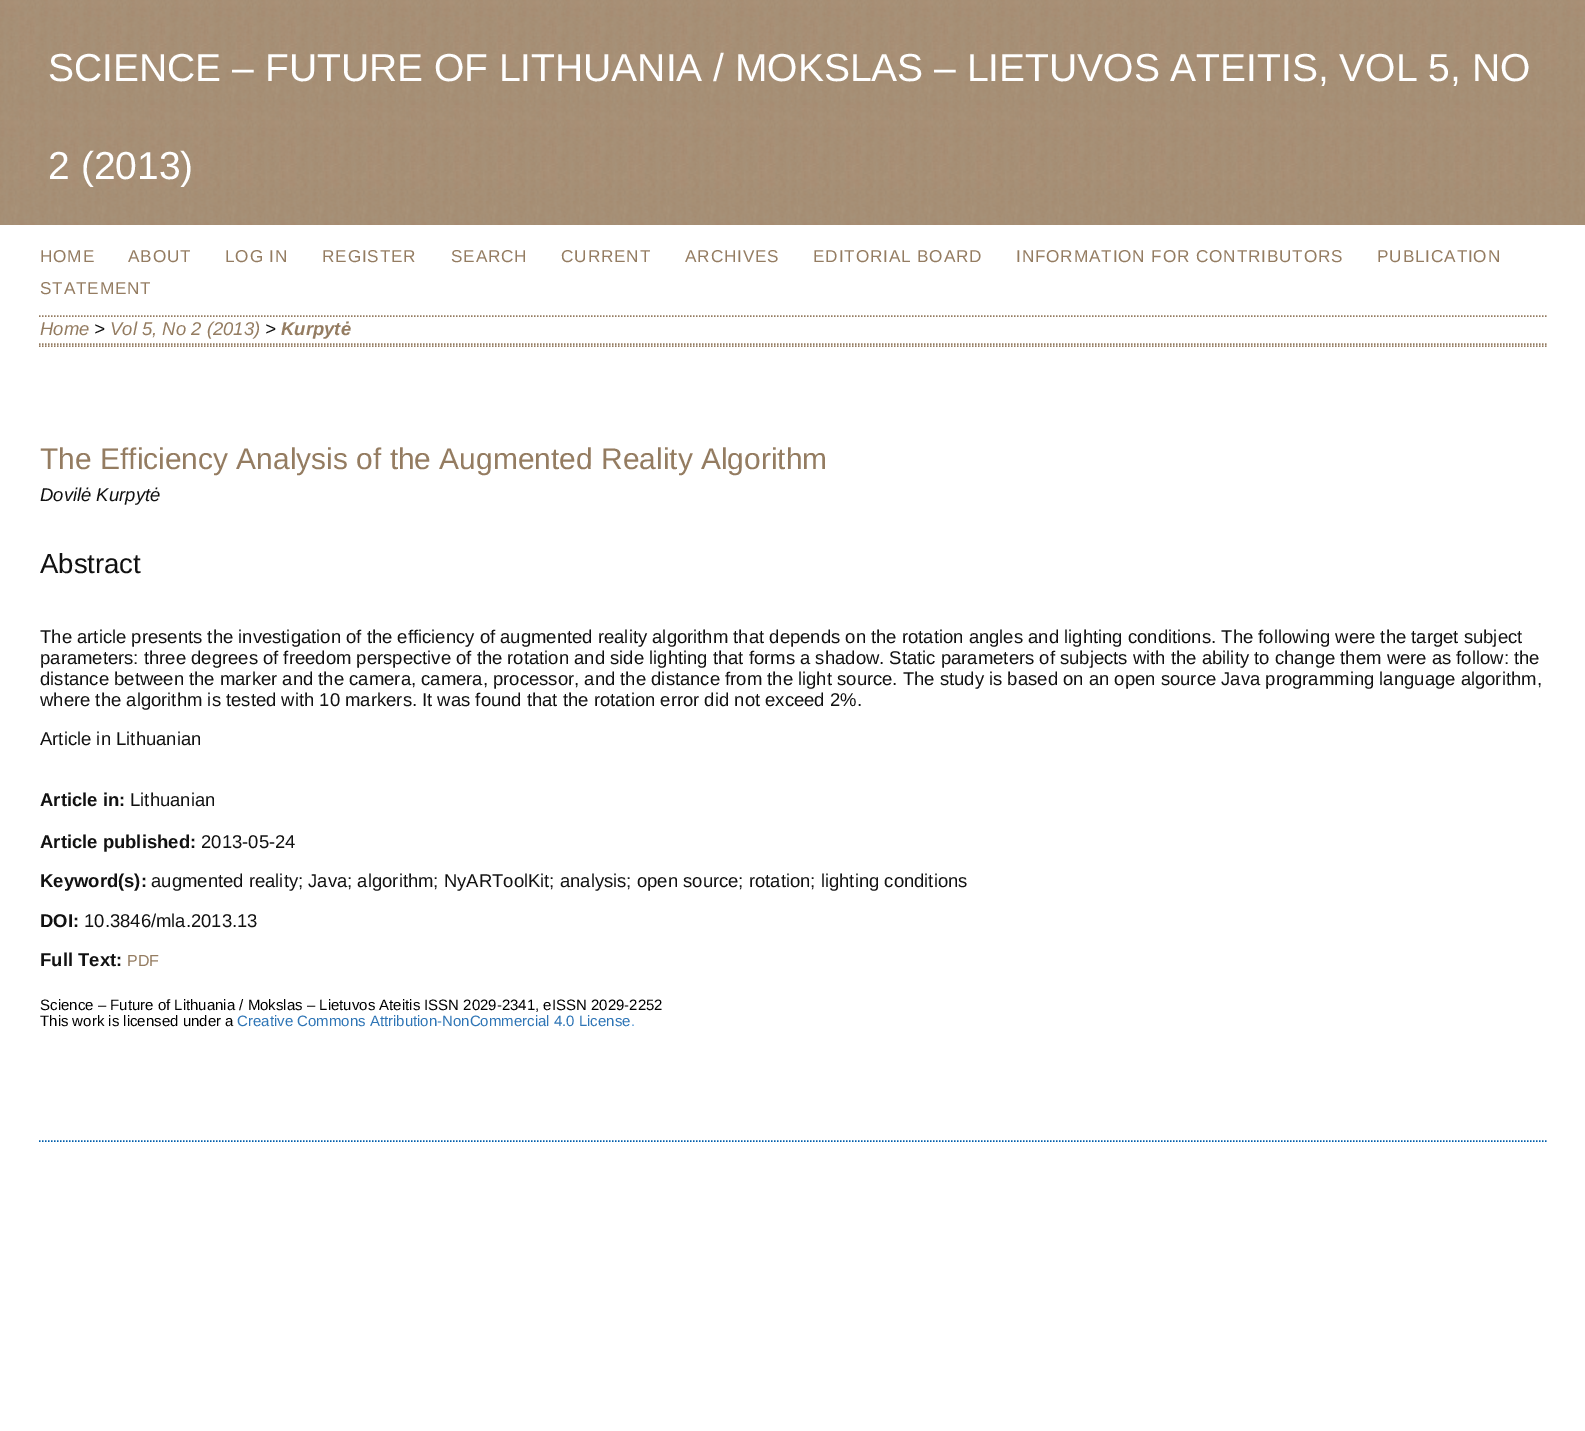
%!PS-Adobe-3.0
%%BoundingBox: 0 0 1585 1431
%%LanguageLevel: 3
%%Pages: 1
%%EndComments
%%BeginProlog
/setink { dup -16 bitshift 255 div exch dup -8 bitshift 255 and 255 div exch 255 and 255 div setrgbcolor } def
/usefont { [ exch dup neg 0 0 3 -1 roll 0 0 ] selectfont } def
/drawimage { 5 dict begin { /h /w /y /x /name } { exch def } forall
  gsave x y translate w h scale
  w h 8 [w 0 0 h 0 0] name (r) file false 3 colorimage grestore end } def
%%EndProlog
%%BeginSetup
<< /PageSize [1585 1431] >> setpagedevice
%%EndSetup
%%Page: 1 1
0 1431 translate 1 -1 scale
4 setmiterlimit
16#FFFFFF setink
0 0 1585 1431 rectfill
(img1.raw) 0 0 1585 225 drawimage
/LiberationSans-Regular 39 usefont
48 81 moveto (SCIENCE – FUTURE OF LITHUANIA / MOKSLAS – LIETUVOS ATEITIS, VOL 5, NO) show
48 179 moveto (2 \(2013\)) show
16#005DAB setink
1.5 setlinewidth
[1.5 1.5] 0 setdash
39 1141 moveto 1546.5 1141 lineto stroke
16#947C61 setink
39 316 moveto 1546.5 316 lineto stroke
/LiberationSans-Regular 17.2 usefont
40 262 moveto 0.85 0 (HOME) ashow
128 262 moveto 0.85 0 (ABOUT) ashow
225 262 moveto 0.85 0 (LOG IN) ashow
322 262 moveto 0.85 0 (REGISTER) ashow
451 262 moveto 0.85 0 (SEARCH) ashow
561 262 moveto 0.85 0 (CURRENT) ashow
685 262 moveto 0.85 0 (ARCHIVES) ashow
813 262 moveto 0.85 0 (EDITORIAL BOARD) ashow
1016 262 moveto 0.85 0 (INFORMATION FOR CONTRIBUTORS) ashow
1377 262 moveto 0.85 0 (PUBLICATION) ashow
40 294 moveto 0.85 0 (STATEMENT) ashow
39 344 moveto 1546.5 344 lineto stroke
/LiberationSans-Italic 18.48 usefont
40 335 moveto (Home) show
16#111111 setink
94 335 moveto (>) show
16#947C61 setink
110 335 moveto (Vol 5, No 2 \(2013\)) show
16#111111 setink
265 335 moveto (>) show
/LiberationSans-BoldItalic 18.48 usefont
16#947C61 setink
281 335 moveto (Kurpytė) show
39 346 moveto 1546.5 346 lineto stroke
/LiberationSans-Regular 29.95 usefont
40 469 moveto (The Efficiency Analysis of the Augmented Reality Algorithm) show
/LiberationSans-Italic 18.48 usefont
16#111111 setink
40 501 moveto (Dovilė Kurpytė) show
/LiberationSans-Regular 27.5 usefont
40 573 moveto (Abstract) show
/LiberationSans-Regular 18.48 usefont
[
    [(The article presents the investigation of the efficiency of augmented reality algorithm that depends on the rotation angles and lighting conditions. The following were the target subject) 40 643]
    [(parameters: three degrees of freedom perspective of the rotation and side lighting that forms a shadow. Static parameters of subjects with the ability to change them were as follow: the) 40 664]
    [(distance between the marker and the camera, camera, processor, and the distance from the light source. The study is based on an open source Java programming language algorithm,) 40 685]
    [(where the algorithm is tested with 10 markers. It was found that the rotation error did not exceed 2%.) 40 706]
    [(Article in Lithuanian) 40 745]
] { aload pop moveto show } forall
/LiberationSans-Bold 18.48 usefont
40 806 moveto (Article in:) show
/LiberationSans-Regular 18.48 usefont
130 806 moveto (Lithuanian) show
/LiberationSans-Bold 18.48 usefont
40 848 moveto (Article published:) show
/LiberationSans-Regular 18.48 usefont
201 848 moveto (2013-05-24) show
/LiberationSans-Bold 18.48 usefont
40 887 moveto (Keyword\(s\):) show
/LiberationSans-Regular 18.48 usefont
151 887 moveto (augmented reality; Java; algorithm; NyARToolKit; analysis; open source; rotation; lighting conditions) show
/LiberationSans-Bold 18.48 usefont
40 927 moveto (DOI:) show
/LiberationSans-Regular 18.48 usefont
84 927 moveto (10.3846/mla.2013.13) show
/LiberationSans-Bold 18.48 usefont
40 966 moveto (Full Text:) show
/LiberationSans-Regular 16 usefont
16#947C61 setink
127 966 moveto (PDF) show
/LiberationSans-Regular 15 usefont
16#000000 setink
40 1010 moveto (Science – Future of Lithuania / Mokslas – Lietuvos Ateitis ISSN 2029-2341, eISSN 2029-2252) show
40 1026 moveto (This work is licensed under a) show
16#2E75B6 setink
237 1026 moveto (Creative Commons Attribution-NonCommercial 4.0 License) show
16#5B9BD5 setink
631 1026 moveto (.) show
showpage
%%EOF
